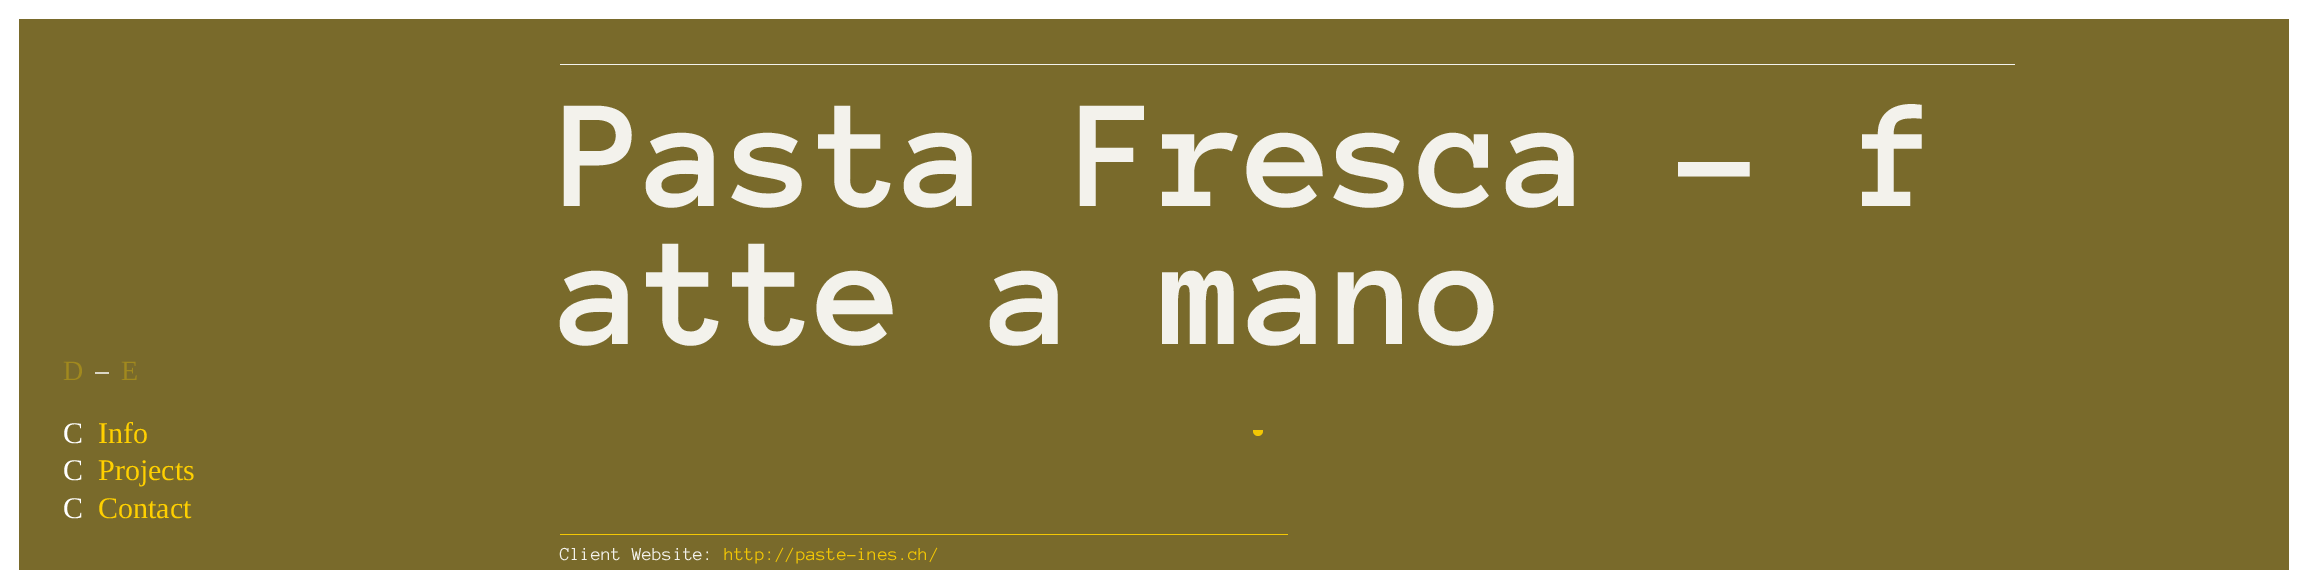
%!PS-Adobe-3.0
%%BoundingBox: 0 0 2307 588
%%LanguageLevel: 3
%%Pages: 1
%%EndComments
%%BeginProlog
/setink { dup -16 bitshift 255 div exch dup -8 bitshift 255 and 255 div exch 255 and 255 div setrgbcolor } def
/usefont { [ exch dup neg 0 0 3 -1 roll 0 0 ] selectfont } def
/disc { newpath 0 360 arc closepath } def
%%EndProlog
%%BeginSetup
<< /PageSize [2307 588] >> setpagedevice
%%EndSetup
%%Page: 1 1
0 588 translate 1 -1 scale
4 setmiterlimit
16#796A2B setink
0 0 2307 588 rectfill
/LiberationSerif-Regular 28 usefont
16#A1891E setink
63 380 moveto (D) show
121 380 moveto (E) show
/LiberationSerif-Regular 30 usefont
16#FFD000 setink
[
    [(Info) 98 443]
    [(Projects) 98 480]
    [(Contact) 98 518]
] { aload pop moveto show } forall
16#F3F2EC setink
560 64 1455 1 rectfill
/AnonymousPro-Bold 157.5 usefont
560 206 moveto (Pasta Fresca - f) show
560 344 moveto (atte a mano) show
gsave
560 430 1455 29 rectclip
16#F3C704 setink
1258 431 5 disc fill
grestore
16#F3C704 setink
560 534 728 1 rectfill
/AnonymousPro-Regular 18.75 usefont
16#F3F2EC setink
560 560 moveto (Client Website:) show
16#F3C704 setink
724 560 moveto (http://paste-ines.ch/) show
16#FFFFFF setink
-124 -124 moveto 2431 -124 lineto 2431 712 lineto -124 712 lineto closepath 19 19 moveto 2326 19 lineto 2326 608 lineto 19 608 lineto closepath eofill
-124 -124 moveto 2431 -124 lineto 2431 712 lineto -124 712 lineto closepath -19 -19 moveto 2289 -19 lineto 2289 570 lineto -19 570 lineto closepath eofill
/FreeSans-Regular 28 usefont
95 380 moveto (⎯) show
/LiberationSerif-Regular 30 usefont
[
    [(C) 63 443]
    [(C) 63 480]
    [(C) 63 518]
] { aload pop moveto show } forall
showpage
%%EOF
